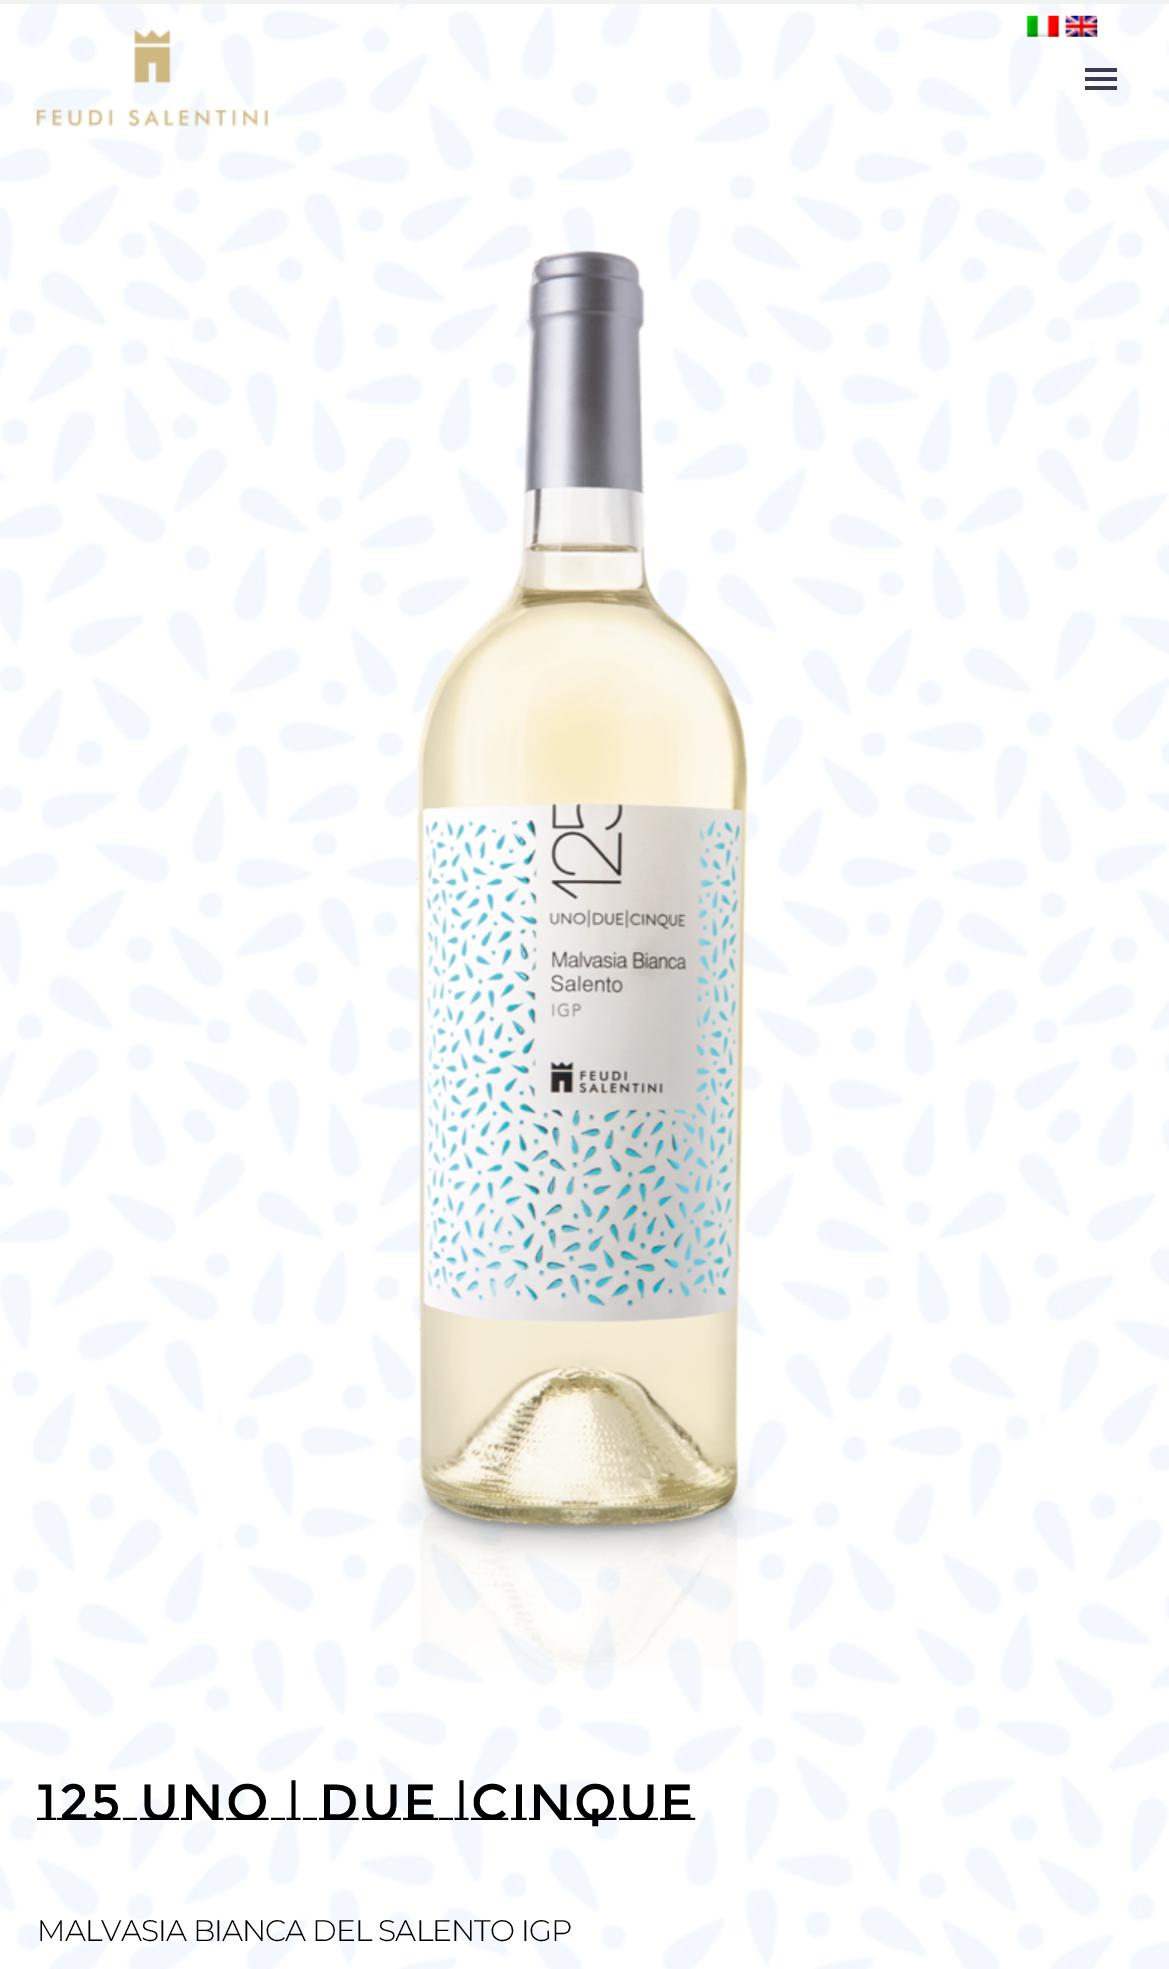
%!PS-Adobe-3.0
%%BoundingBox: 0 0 1169 1969
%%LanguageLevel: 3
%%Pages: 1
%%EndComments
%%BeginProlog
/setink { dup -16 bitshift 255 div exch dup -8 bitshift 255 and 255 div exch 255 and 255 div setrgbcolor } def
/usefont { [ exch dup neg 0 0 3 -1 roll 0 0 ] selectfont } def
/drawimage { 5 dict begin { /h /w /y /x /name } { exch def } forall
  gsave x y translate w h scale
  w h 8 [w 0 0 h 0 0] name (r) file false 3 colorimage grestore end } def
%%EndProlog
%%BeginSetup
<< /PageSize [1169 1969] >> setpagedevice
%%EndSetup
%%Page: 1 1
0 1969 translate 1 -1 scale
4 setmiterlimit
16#F0F3F2 setink
0 0 1169 1969 rectfill
16#FFFFFF setink
0 4 1169 1965 rectfill
(img4.raw) 0 4 1169 1965 drawimage
(img1.raw) 1027 15 33 22 drawimage
(img2.raw) 1065 15 33 22 drawimage
(img3.raw) 36 29 232 97 drawimage
[
    [1085 68 32 4 16#3C3950]
    [1085 77 32 4 16#3C3950]
    [1085 86 32 4 16#3C3950]
] { aload pop setink rectfill } forall
(img5.raw) 403 250 353 1421 drawimage
/MontserratSubrayada-Regular 50.75 usefont
16#000000 setink
37 1820 moveto 2.5 0 (125 UNO | DUE |CINQUE) ashow
/Montserrat-Light 29.75 usefont
37 1941 moveto -0.9 0 (MALVASIA BIANCA DEL SALENTO IGP) ashow
showpage
%%EOF
